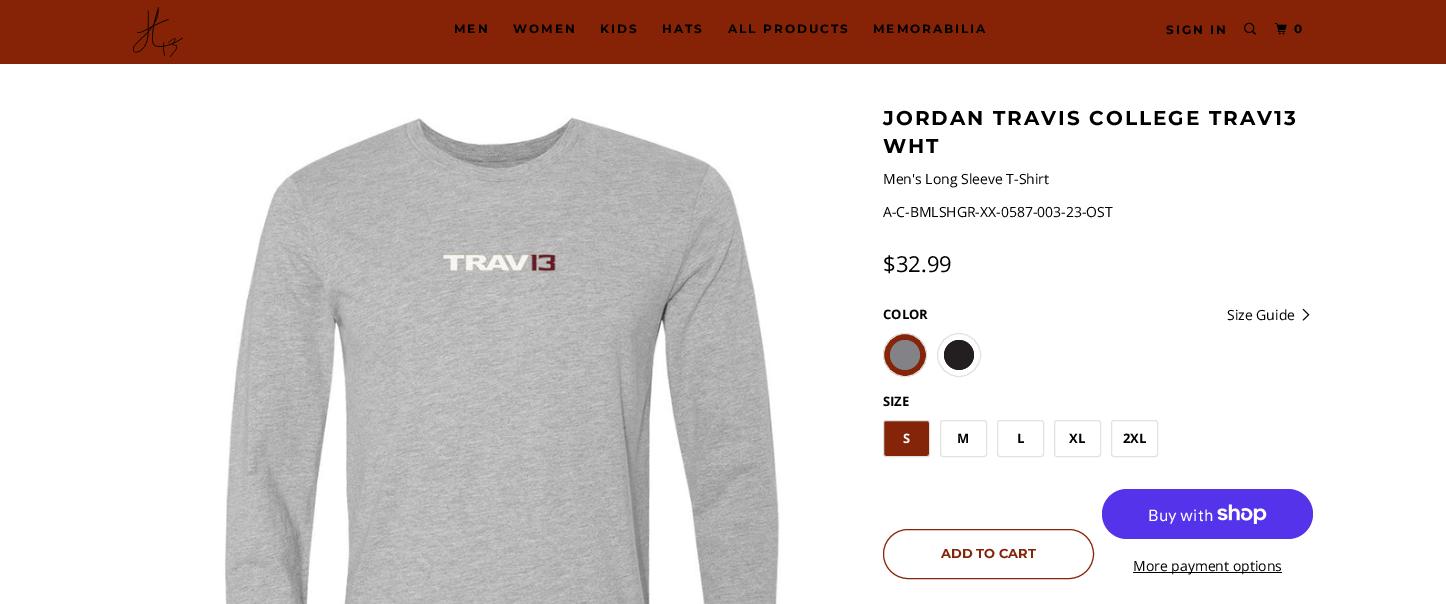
%!PS-Adobe-3.0
%%BoundingBox: 0 0 1446 604
%%LanguageLevel: 3
%%Pages: 1
%%EndComments
%%BeginProlog
/setink { dup -16 bitshift 255 div exch dup -8 bitshift 255 and 255 div exch 255 and 255 div setrgbcolor } def
/usefont { [ exch dup neg 0 0 3 -1 roll 0 0 ] selectfont } def
/disc { newpath 0 360 arc closepath } def
/rrect { 5 dict begin { /r /h /w /y /x } { exch def } forall
  x r add y moveto x w add y 2 copy h add r arct x w add y h add x 1 index r arct
  x y h add x y r arct x y 2 copy exch w add exch r arct closepath end } def
/drawimage { 5 dict begin { /h /w /y /x /name } { exch def } forall
  gsave x y translate w h scale
  w h 8 [w 0 0 h 0 0] name (r) file false 3 colorimage grestore end } def
%%EndProlog
%%BeginSetup
<< /PageSize [1446 604] >> setpagedevice
%%EndSetup
%%Page: 1 1
0 604 translate 1 -1 scale
4 setmiterlimit
16#FFFFFF setink
0 0 1446 604 rectfill
16#862306 setink
0 0 1446 64 rectfill
(img1.raw) 133 7 50 50 drawimage
/Montserrat-Bold 12 usefont
16#000000 setink
454 33 moveto 2 0 (MEN) ashow
513 33 moveto 2 0 (WOMEN) ashow
600 33 moveto 2 0 (KIDS) ashow
662 33 moveto 2 0 (HATS) ashow
728 33 moveto 2 0 (ALL PRODUCTS) ashow
873 33 moveto 2 0 (MEMORABILIA) ashow
1166 34 moveto 2 0 (SIGN IN) ashow
(img2.raw) 1244 22 12 13 drawimage
(img3.raw) 1275 23 12 12 drawimage
1294 33 moveto 2 0 (0) ashow
(img4.raw) 223 116 559 488 drawimage
/Montserrat-Bold 20 usefont
883 125 moveto 2 0 (JORDAN TRAVIS COLLEGE TRAV13) ashow
883 153 moveto 2 0 (WHT) ashow
/OpenSans-Regular 14 usefont
883 184 moveto (Men's Long Sleeve T-Shirt) show
883 217 moveto (A-C-BMLSHGR-XX-0587-003-23-OST) show
/OpenSans-Regular 22 usefont
883 272 moveto ($32.99) show
/OpenSans-Bold 13 usefont
883 319 moveto (COLOR) show
16#842509 setink
905 355 21.5 disc gsave fill grestore
16#E2E2E2 setink
stroke
16#808080 setink
905 355 15 disc fill
(img5.raw) 890 340 30 30 drawimage
16#E2E2E2 setink
959 355 21.5 disc stroke
16#000000 setink
959 355 15 disc fill
(img6.raw) 944 340 30 30 drawimage
883 406 moveto (SIZE) show
16#842509 setink
883.5 420.5 46 36 2.5 rrect gsave fill grestore
16#E2E2E2 setink
stroke
16#FFFFFF setink
903 443 moveto (S) show
16#E2E2E2 setink
940.5 420.5 46 36 2.5 rrect stroke
16#000000 setink
957 443 moveto (M) show
16#E2E2E2 setink
997.5 420.5 46 36 2.5 rrect stroke
16#000000 setink
1017 443 moveto (L) show
16#E2E2E2 setink
1054.5 420.5 46 36 2.5 rrect stroke
16#000000 setink
1069 443 moveto (XL) show
16#E2E2E2 setink
1111.5 420.5 46 36 2.5 rrect stroke
16#000000 setink
1123 443 moveto (2XL) show
/OpenSans-Regular 14 usefont
1227 320 moveto (Size Guide) show
(img7.raw) 1302 308 8 13 drawimage
16#842509 setink
883.5 529.5 210 49 24.5 rrect stroke
/Montserrat-Bold 13 usefont
941 558 moveto (ADD TO CART) show
16#5433EB setink
1102 489 211 50 25 rrect fill
/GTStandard-Regular 16 usefont
16#FFFFFF setink
1148 521 moveto (Buy with) show
(img8.raw) 1217 504 50 20 drawimage
16#000000 setink
1133 572 149 1 rectfill
/OpenSans-Regular 14 usefont
1133 571 moveto (More payment options) show
showpage
%%EOF
